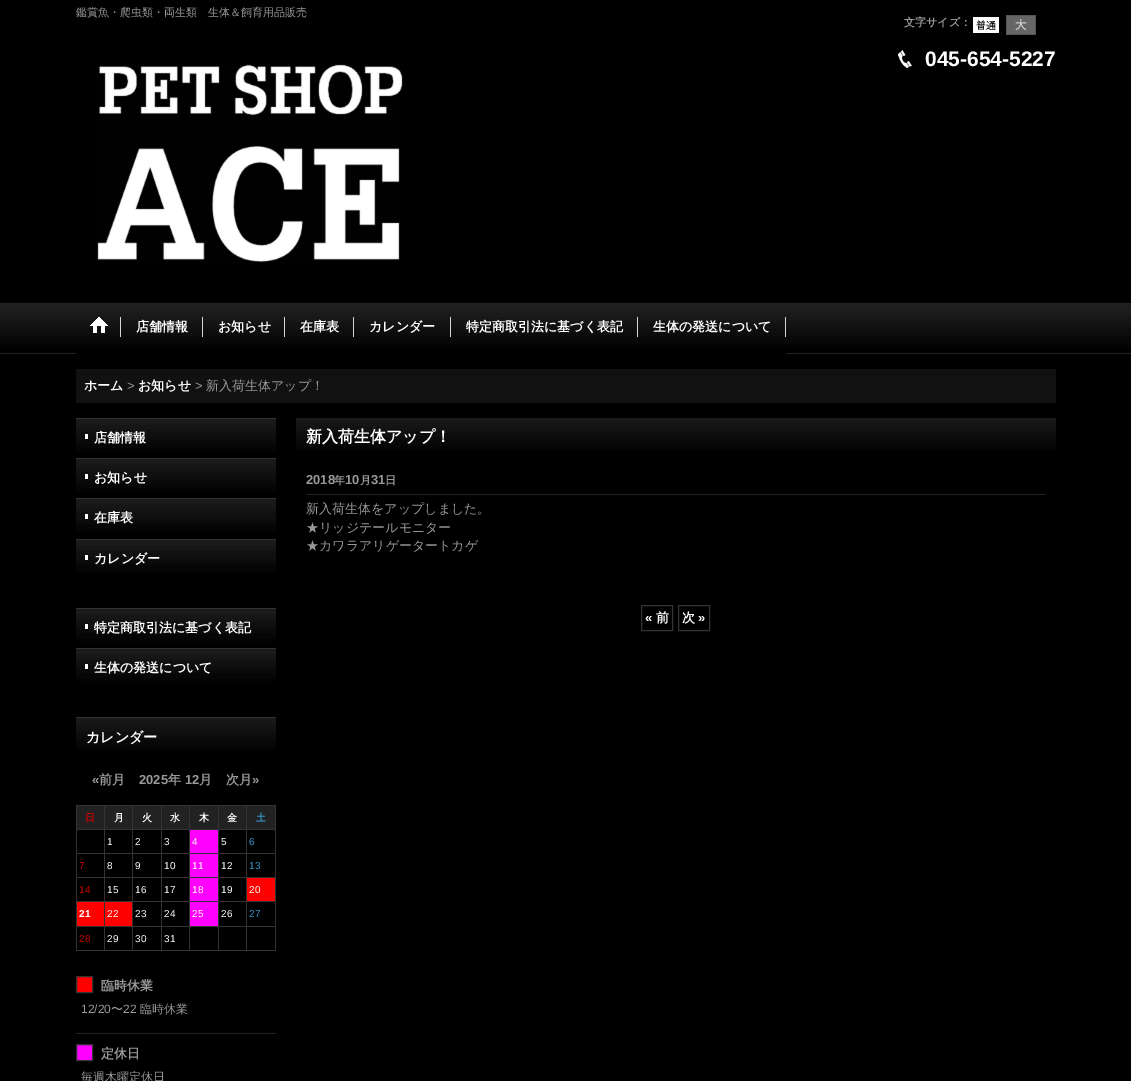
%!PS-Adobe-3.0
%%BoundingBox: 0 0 1131 1081
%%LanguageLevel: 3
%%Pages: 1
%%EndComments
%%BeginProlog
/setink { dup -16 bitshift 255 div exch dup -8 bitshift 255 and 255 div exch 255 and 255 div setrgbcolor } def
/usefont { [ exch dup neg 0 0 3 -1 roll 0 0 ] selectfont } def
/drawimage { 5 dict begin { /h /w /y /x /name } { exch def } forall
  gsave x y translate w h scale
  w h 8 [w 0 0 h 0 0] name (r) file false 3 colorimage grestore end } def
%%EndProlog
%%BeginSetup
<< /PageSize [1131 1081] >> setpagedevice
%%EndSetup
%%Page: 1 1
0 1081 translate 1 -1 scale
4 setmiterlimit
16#000000 setink
0 0 1131 1081 rectfill
/WenQuanYiZenHei-Medium 11 usefont
16#999999 setink
76 16 moveto (鑑賞魚・爬虫類・両生類　生体＆飼育用品販売) show
(img1.raw) 97 64 306 199 drawimage
/WenQuanYiZenHei-Bold 11 usefont
904 26 moveto (文字サイズ：) show
(img2.raw) 973 17 26 16 drawimage
(img3.raw) 1006 15 30 20 drawimage
(img4.raw) 898 50 14 18 drawimage
/LiberationSans-Bold 21 usefont
16#FFFFFF setink
925 66 moveto (045-654-5227) show
(img5.raw) 0 303 1131 51 drawimage
16#D6D6D6 setink
120 317 1 20 rectfill
16#000000 setink
76 353 710 1 rectfill
(img6.raw) 90 317 18 16 drawimage
16#D6D6D6 setink
202 317 1 20 rectfill
/WenQuanYiZenHei-Bold 13 usefont
16#FFFFFF setink
136 331 moveto (店舗情報) show
16#D6D6D6 setink
284 317 1 20 rectfill
16#FFFFFF setink
218 331 moveto (お知らせ) show
16#D6D6D6 setink
353 317 1 20 rectfill
16#FFFFFF setink
300 331 moveto (在庫表) show
16#D6D6D6 setink
450 317 1 20 rectfill
16#FFFFFF setink
369 331 moveto (カレンダー) show
16#D6D6D6 setink
637 317 1 20 rectfill
16#FFFFFF setink
466 331 moveto (特定商取引法に基づく表記) show
16#D6D6D6 setink
785 317 1 20 rectfill
16#FFFFFF setink
653 331 moveto (生体の発送について) show
16#111111 setink
76 369 980 34 rectfill
16#FFFFFF setink
84 390 moveto (ホーム) show
/LiberationSans-Regular 13 usefont
16#999999 setink
127 390 moveto (>) show
/WenQuanYiZenHei-Bold 13 usefont
16#FFFFFF setink
138 390 moveto (お知らせ) show
/LiberationSans-Regular 13 usefont
16#999999 setink
195 390 moveto (>) show
/WenQuanYiZenHei-Medium 13 usefont
206 390 moveto (新入荷生体アップ！) show
(img7.raw) 76 419 200 38 drawimage
16#333333 setink
76 418 200 1 rectfill
16#FFFFFF setink
85 434 3 5 rectfill
/WenQuanYiZenHei-Bold 13 usefont
94 442 moveto (店舗情報) show
(img7.raw) 76 459 200 38 drawimage
16#333333 setink
76 458 200 1 rectfill
16#FFFFFF setink
85 474 3 5 rectfill
94 482 moveto (お知らせ) show
(img8.raw) 76 499 200 39 drawimage
16#333333 setink
76 498 200 1 rectfill
16#FFFFFF setink
85 514 3 5 rectfill
94 522 moveto (在庫表) show
(img7.raw) 76 540 200 38 drawimage
16#333333 setink
76 539 200 1 rectfill
16#FFFFFF setink
85 555 3 5 rectfill
94 563 moveto (カレンダー) show
(img7.raw) 76 609 200 38 drawimage
16#333333 setink
76 608 200 1 rectfill
16#FFFFFF setink
85 624 3 5 rectfill
94 632 moveto (特定商取引法に基づく表記) show
(img7.raw) 76 649 200 38 drawimage
16#333333 setink
76 648 200 1 rectfill
16#FFFFFF setink
85 664 3 5 rectfill
94 672 moveto (生体の発送について) show
(img9.raw) 76 718 200 38 drawimage
16#333333 setink
76 717 200 1 rectfill
/WenQuanYiZenHei-Bold 14 usefont
16#FFFFFF setink
86 742 moveto (カレンダー) show
/LiberationSans-Bold 13 usefont
16#999999 setink
92 784 moveto («) show
/WenQuanYiZenHei-Bold 13 usefont
99 784 moveto (前月) show
/LiberationSans-Bold 13 usefont
139 784 moveto (2025) show
/WenQuanYiZenHei-Bold 13 usefont
168 784 moveto (年) show
/LiberationSans-Bold 13 usefont
185 784 moveto (12) show
/WenQuanYiZenHei-Bold 13 usefont
199 784 moveto (月) show
226 784 moveto (次月) show
/LiberationSans-Bold 13 usefont
252 784 moveto (») show
[
    [77 806 27 23 16#222222]
    [246 805 30 1 16#333333]
    [246 829 30 1 16#333333]
    [246 853 30 1 16#333333]
    [246 877 30 1 16#333333]
    [246 901 30 1 16#333333]
    [246 926 30 1 16#333333]
    [275 926 1 25 16#333333]
    [246 950 30 1 16#333333]
    [246 926 1 25 16#333333]
    [218 926 29 1 16#333333]
    [246 901 1 26 16#333333]
    [218 901 29 1 16#333333]
    [246 877 1 25 16#333333]
    [218 877 29 1 16#333333]
    [246 853 1 25 16#333333]
    [218 853 29 1 16#333333]
    [246 829 1 25 16#333333]
    [218 829 29 1 16#333333]
    [246 805 1 25 16#333333]
    [218 805 29 1 16#333333]
    [218 950 29 1 16#333333]
    [218 926 1 25 16#333333]
    [189 926 30 1 16#333333]
    [218 901 1 26 16#333333]
    [189 901 30 1 16#333333]
    [218 877 1 25 16#333333]
    [189 877 30 1 16#333333]
    [218 853 1 25 16#333333]
    [189 853 30 1 16#333333]
    [218 829 1 25 16#333333]
    [189 829 30 1 16#333333]
    [218 805 1 25 16#333333]
    [189 805 30 1 16#333333]
    [189 950 30 1 16#333333]
    [189 926 1 25 16#333333]
    [161 926 29 1 16#333333]
    [189 901 1 26 16#333333]
    [161 901 29 1 16#333333]
    [189 877 1 25 16#333333]
    [161 877 29 1 16#333333]
    [189 853 1 25 16#333333]
    [161 853 29 1 16#333333]
    [189 829 1 25 16#333333]
    [161 829 29 1 16#333333]
    [189 805 1 25 16#333333]
    [161 805 29 1 16#333333]
    [161 950 29 1 16#333333]
    [161 926 1 25 16#333333]
    [132 926 30 1 16#333333]
    [161 901 1 26 16#333333]
    [132 901 30 1 16#333333]
    [161 877 1 25 16#333333]
    [132 877 30 1 16#333333]
    [161 853 1 25 16#333333]
    [132 853 30 1 16#333333]
    [161 829 1 25 16#333333]
    [132 829 30 1 16#333333]
    [161 805 1 25 16#333333]
    [132 805 30 1 16#333333]
    [132 950 30 1 16#333333]
    [132 926 1 25 16#333333]
    [104 926 29 1 16#333333]
    [132 901 1 26 16#333333]
    [104 901 29 1 16#333333]
    [132 877 1 25 16#333333]
    [104 877 29 1 16#333333]
    [132 853 1 25 16#333333]
    [104 853 29 1 16#333333]
    [132 829 1 25 16#333333]
    [104 829 29 1 16#333333]
    [132 805 1 25 16#333333]
    [104 805 29 1 16#333333]
    [104 950 29 1 16#333333]
    [104 926 1 25 16#333333]
    [76 926 29 1 16#333333]
    [104 901 1 26 16#333333]
    [76 901 29 1 16#333333]
    [104 877 1 25 16#333333]
    [76 877 29 1 16#333333]
    [104 853 1 25 16#333333]
    [76 853 29 1 16#333333]
    [104 829 1 25 16#333333]
    [76 829 29 1 16#333333]
    [104 805 1 25 16#333333]
    [76 805 29 1 16#333333]
    [76 950 29 1 16#333333]
    [76 926 1 25 16#333333]
    [76 901 1 26 16#333333]
    [76 877 1 25 16#333333]
    [76 853 1 25 16#333333]
    [76 829 1 25 16#333333]
    [76 805 1 25 16#333333]
] { aload pop setink rectfill } forall
/WenQuanYiZenHei-Bold 10 usefont
16#CC0000 setink
85 821 moveto (日) show
16#222222 setink
105 806 27 23 rectfill
16#FFFFFF setink
114 821 moveto (月) show
16#222222 setink
133 806 28 23 rectfill
16#FFFFFF setink
142 821 moveto (火) show
16#222222 setink
162 806 27 23 rectfill
16#FFFFFF setink
170 821 moveto (水) show
16#222222 setink
190 806 28 23 rectfill
16#FFFFFF setink
199 821 moveto (木) show
16#222222 setink
219 806 27 23 rectfill
16#FFFFFF setink
227 821 moveto (金) show
[
    [247 806 28 23 16#222222]
    [275 901 1 26 16#333333]
    [275 877 1 25 16#333333]
    [275 853 1 25 16#333333]
    [275 829 1 25 16#333333]
    [275 805 1 25 16#333333]
] { aload pop setink rectfill } forall
16#3399CC setink
256 821 moveto (土) show
/LiberationSans-Regular 10 usefont
16#FFFFFF setink
[
    [(1) 107 845]
    [(2) 135 845]
    [(3) 164 845]
] { aload pop moveto show } forall
16#FF00FF setink
190 830 28 23 rectfill
16#FFFFFF setink
192 845 moveto (4) show
221 845 moveto (5) show
16#3399CC setink
249 845 moveto (6) show
16#CC0000 setink
79 869 moveto (7) show
16#FFFFFF setink
[
    [(8) 107 869]
    [(9) 135 869]
    [(10) 164 869]
] { aload pop moveto show } forall
16#FF00FF setink
190 854 28 23 rectfill
16#FFFFFF setink
192 869 moveto (11) show
221 869 moveto (12) show
16#3399CC setink
249 869 moveto (13) show
16#CC0000 setink
79 893 moveto (14) show
16#FFFFFF setink
[
    [(15) 107 893]
    [(16) 135 893]
    [(17) 164 893]
] { aload pop moveto show } forall
16#FF00FF setink
190 878 28 23 rectfill
16#FFFFFF setink
192 893 moveto (18) show
221 893 moveto (19) show
16#FF0000 setink
247 878 28 23 rectfill
16#FFFFFF setink
249 893 moveto (20) show
16#FF0000 setink
77 902 27 24 rectfill
/LiberationSans-Bold 10 usefont
16#FFFFFF setink
79 917 moveto (21) show
16#FF0000 setink
105 902 27 24 rectfill
/LiberationSans-Regular 10 usefont
16#FFFFFF setink
[
    [(22) 107 917]
    [(23) 135 917]
    [(24) 164 917]
] { aload pop moveto show } forall
16#FF00FF setink
190 902 28 24 rectfill
16#FFFFFF setink
192 917 moveto (25) show
221 917 moveto (26) show
16#3399CC setink
249 917 moveto (27) show
16#CC0000 setink
79 942 moveto (28) show
16#FFFFFF setink
[
    [(29) 107 942]
    [(30) 135 942]
    [(31) 164 942]
] { aload pop moveto show } forall
16#222222 setink
76 1033 200 1 rectfill
16#FF0000 setink
76.5 976.5 moveto 92.5 976.5 lineto 92.5 992.5 lineto 76.5 992.5 lineto closepath gsave fill grestore
16#333333 setink
stroke
/WenQuanYiZenHei-Bold 13 usefont
16#999999 setink
101 990 moveto (臨時休業) show
/LiberationSans-Regular 12 usefont
81 1013 moveto (12/20) show
/WenQuanYiZenHei-Medium 12 usefont
111 1013 moveto (〜) show
/LiberationSans-Regular 12 usefont
123 1013 moveto (22) show
/WenQuanYiZenHei-Medium 12 usefont
140 1013 moveto (臨時休業) show
16#FF00FF setink
76.5 1044.5 moveto 92.5 1044.5 lineto 92.5 1060.5 lineto 76.5 1060.5 lineto closepath gsave fill grestore
16#333333 setink
stroke
/WenQuanYiZenHei-Bold 13 usefont
16#999999 setink
101 1058 moveto (定休日) show
/WenQuanYiZenHei-Medium 12 usefont
81 1081 moveto (毎週木曜定休日) show
(img10.raw) 296 418 760 38 drawimage
/WenQuanYiZenHei-Bold 16 usefont
16#FFFFFF setink
306 442 moveto (新入荷生体アップ！) show
16#222222 setink
306 494 740 1 rectfill
/LiberationSans-Bold 13 usefont
16#999999 setink
306 484 moveto (2018) show
/WenQuanYiZenHei-Bold 11 usefont
334 484 moveto (年) show
/LiberationSans-Bold 13 usefont
345 484 moveto (10) show
/WenQuanYiZenHei-Bold 11 usefont
360 484 moveto (月) show
/LiberationSans-Bold 13 usefont
371 484 moveto (31) show
/WenQuanYiZenHei-Bold 11 usefont
385 484 moveto (日) show
/WenQuanYiZenHei-Medium 13 usefont
[
    [(新入荷生体をアップしました。) 306 513]
    [(★リッジテールモニター) 306 532]
    [(★カワラアリゲータートカゲ) 306 550]
] { aload pop moveto show } forall
16#333333 setink
641.5 605.5 31 25 rectstroke
/LiberationSans-Bold 13 usefont
16#FFFFFF setink
645 622 moveto («) show
/WenQuanYiZenHei-Bold 13 usefont
656 622 moveto (前) show
16#333333 setink
678.5 605.5 31 25 rectstroke
16#FFFFFF setink
682 622 moveto (次) show
/LiberationSans-Bold 13 usefont
698 622 moveto (») show
showpage
%%EOF
